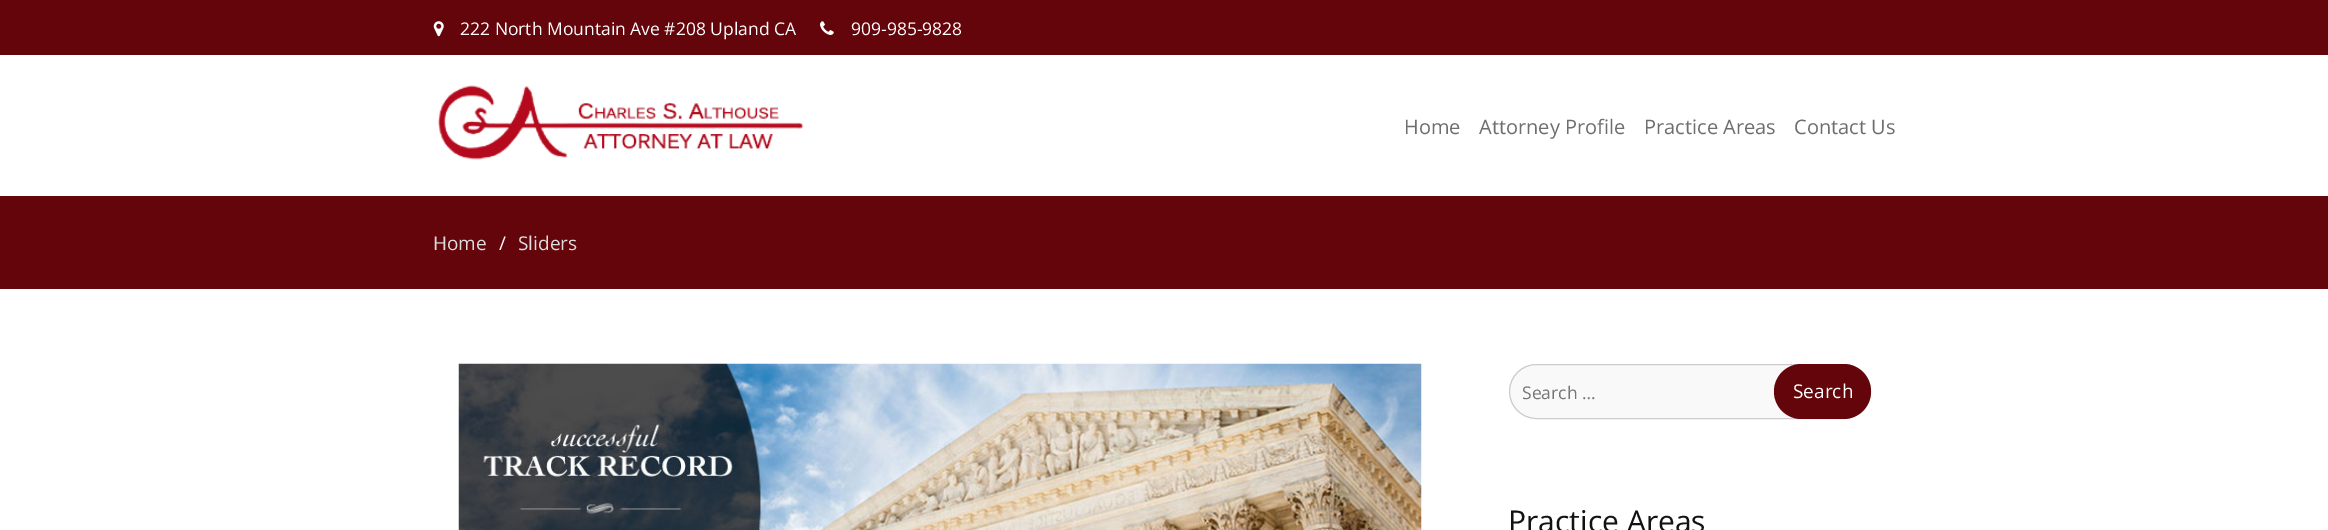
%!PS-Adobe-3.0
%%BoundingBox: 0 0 2328 530
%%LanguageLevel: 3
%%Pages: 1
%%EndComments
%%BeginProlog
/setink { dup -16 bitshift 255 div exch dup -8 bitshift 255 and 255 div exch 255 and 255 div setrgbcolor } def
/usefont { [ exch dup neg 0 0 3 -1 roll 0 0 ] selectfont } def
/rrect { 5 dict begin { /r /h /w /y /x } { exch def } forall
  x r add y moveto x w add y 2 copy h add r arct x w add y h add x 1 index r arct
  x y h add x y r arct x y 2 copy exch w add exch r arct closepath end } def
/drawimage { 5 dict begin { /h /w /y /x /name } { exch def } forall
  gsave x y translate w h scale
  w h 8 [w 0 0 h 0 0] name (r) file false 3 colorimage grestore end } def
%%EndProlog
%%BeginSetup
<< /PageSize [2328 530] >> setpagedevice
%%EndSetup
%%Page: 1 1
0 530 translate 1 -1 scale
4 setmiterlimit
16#FFFFFF setink
0 0 2328 530 rectfill
16#63050A setink
0 0 2328 55 rectfill
(img1.raw) 433 21 11 16 drawimage
/OpenSans-Regular 17.5 usefont
16#FFFFFF setink
460 35 moveto (222 North Mountain Ave #208 Upland CA) show
(img2.raw) 820 21 14 14 drawimage
851 35 moveto (909-985-9828) show
(img3.raw) 438 85 366 75 drawimage
/OpenSans-Regular 20 usefont
16#6E6E6E setink
[
    [(Home) 1404 134]
    [(Attorney Profile) 1479 134]
    [(Practice Areas) 1644 134]
    [(Contact Us) 1794 134]
] { aload pop moveto show } forall
16#63050A setink
0 196 2328 93 rectfill
/OpenSans-Regular 19 usefont
16#DDDDDD setink
433 250 moveto (Home) show
16#FFFFFF setink
499 250 moveto (/) show
16#DDDDDD setink
518 250 moveto (Sliders) show
(img4.raw) 458 363 964 167 drawimage
16#F9F9F9 setink
1509.5 364.5 361 54 27 rrect gsave fill grestore
16#CCCCCC setink
stroke
/OpenSans-Regular 17.5 usefont
16#757575 setink
1522 399 moveto (Search …) show
16#63050A setink
1774 364 97 55 27.5 rrect fill
/OpenSans-Regular 19 usefont
16#FFFFFF setink
1793 398 moveto (Search) show
/OpenSans-Regular 30 usefont
16#121212 setink
1508 532 moveto (Practice Areas) show
showpage
%%EOF
